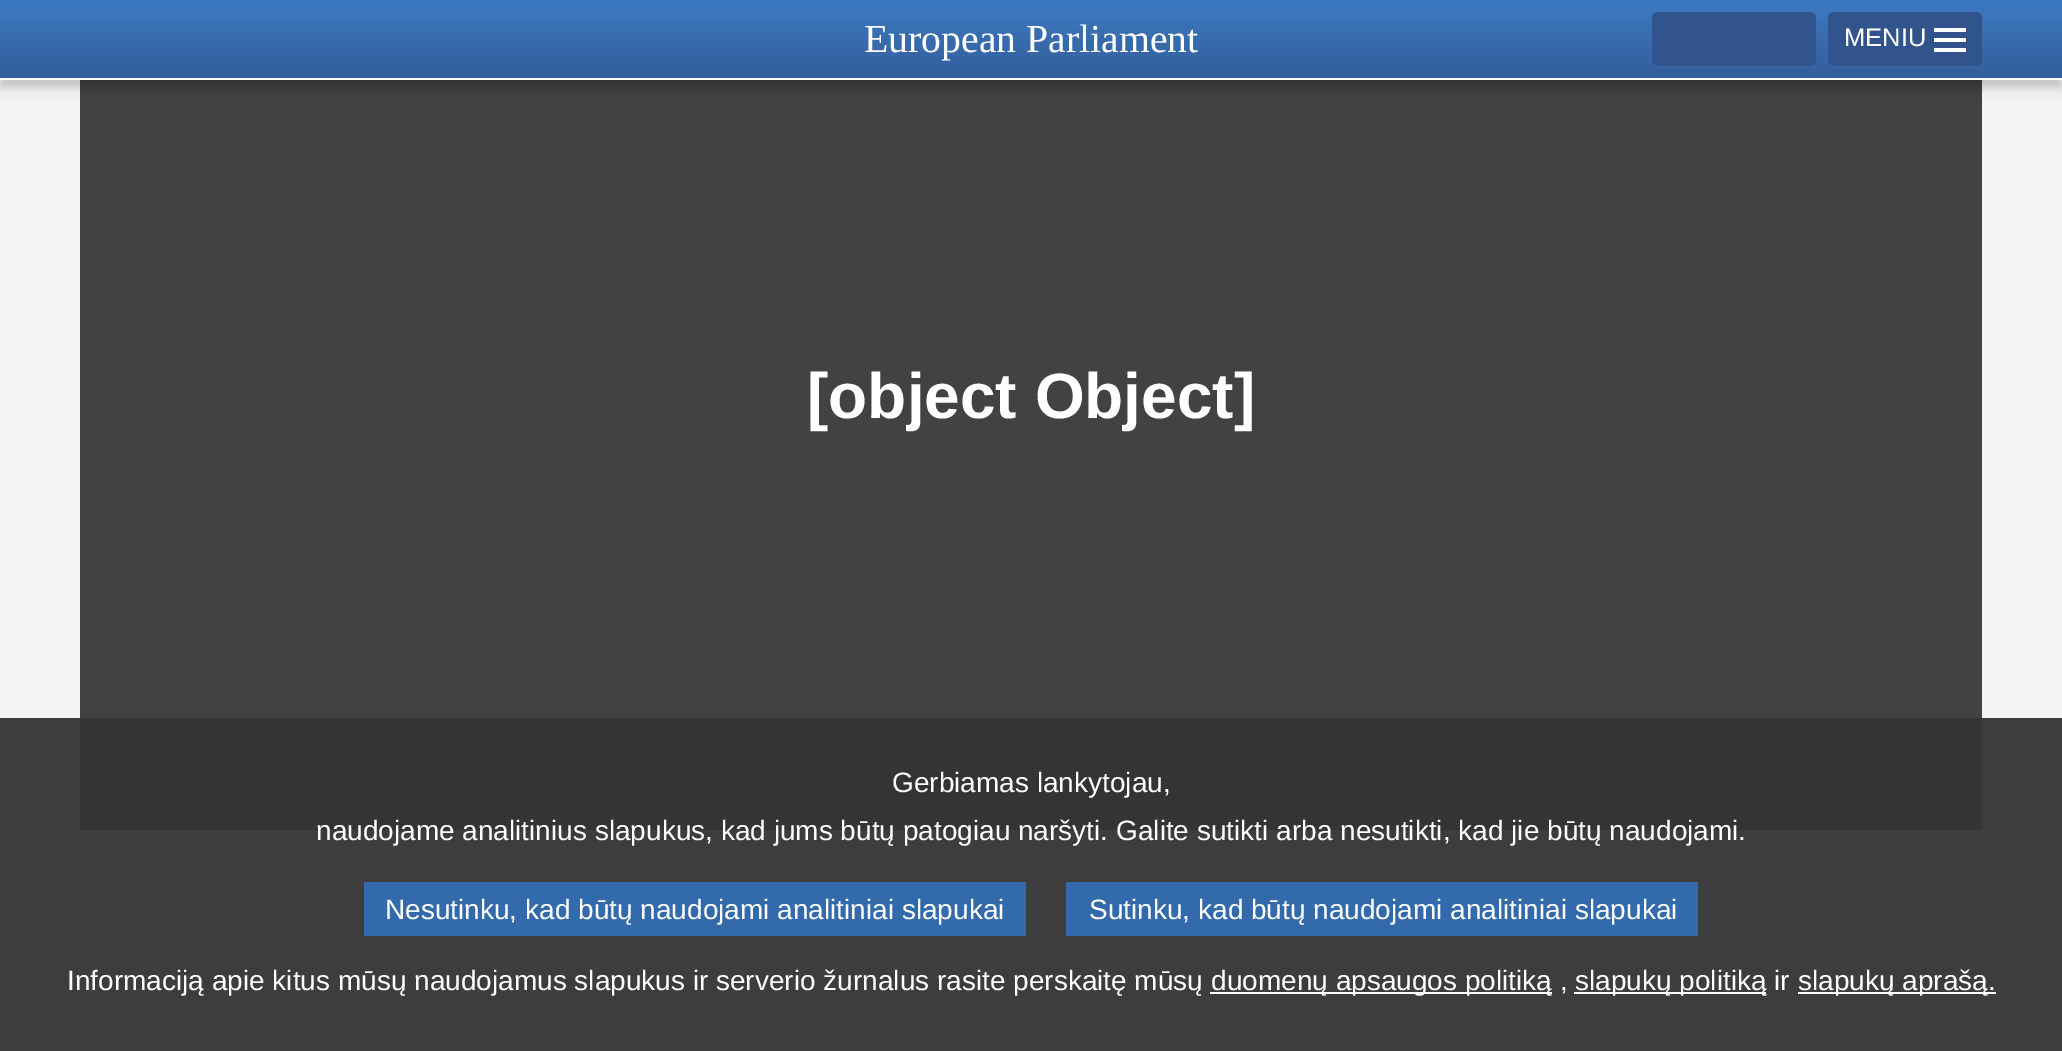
%!PS-Adobe-3.0
%%BoundingBox: 0 0 2062 1051
%%LanguageLevel: 3
%%Pages: 1
%%EndComments
%%BeginProlog
/setink { dup -16 bitshift 255 div exch dup -8 bitshift 255 and 255 div exch 255 and 255 div setrgbcolor } def
/usefont { [ exch dup neg 0 0 3 -1 roll 0 0 ] selectfont } def
/setalpha { dup .setfillconstantalpha .setstrokeconstantalpha } def
/rrect { 5 dict begin { /r /h /w /y /x } { exch def } forall
  x r add y moveto x w add y 2 copy h add r arct x w add y h add x 1 index r arct
  x y h add x y r arct x y 2 copy exch w add exch r arct closepath end } def
/softshadow { 12 dict begin { /a /b /q /h /w /y /x } { exch def } forall gsave /was 0 def
  9 -2 -9 { dup b mul 4 div /e exch def 1 sub .425 mul 2.718 exch exp 1 add a .99 .min exch div /now exch def
    1 1 now sub 1 was sub div sub setalpha /was now def
    w h .min e 2 mul add 0 gt { x e sub y e sub w e 2 mul add h e 2 mul add
      q e add b .6 mul add w h .min 2 div e add .min 0 .max rrect fill } if } for grestore end } def
%%EndProlog
%%BeginSetup
<< /PageSize [2062 1051] /PageUsesTransparency true >> setpagedevice
%%EndSetup
%%Page: 1 1
0 .pushpdf14devicefilter
0 1051 translate 1 -1 scale
4 setmiterlimit
16#3D3D3D setink
0 0 2062 1051 rectfill
16#F3F4F4 setink
0 80 2062 638 rectfill
16#414242 setink
80 80 1902 638 rectfill
16#000000 setink
0 8 2062 80 0 5 0.2 softshadow
gsave 0 0 moveto 2062 0 lineto 2062 78 lineto 0 78 lineto closepath clip newpath
<< /ShadingType 2 /ColorSpace /DeviceRGB /Coords [1031 0 1031 78] /Extend [true true] /Function << /FunctionType 2 /Domain [0 1] /C0 [0.239 0.478 0.757] /C1 [0.204 0.369 0.612] /N 1 >> >> shfill grestore
16#FFFFFF setink
0 78 2062 2 rectfill
/LiberationSerif-Regular 39.75 usefont
864 52 moveto (European Parliament) show
16#32548D setink
1652 12 164 54 6 rrect fill
1828 12 154 54 6 rrect fill
/LiberationSans-Regular 25.5 usefont
16#FFFFFF setink
1844 46 moveto (MENIU) show
[
    [1934 28 32 4 16#FFFFFF]
    [1934 38 32 4 16#FFFFFF]
    [1934 48 32 4 16#FFFFFF]
    [80 718 1902 112 16#343434]
] { aload pop setink rectfill } forall
/LiberationSans-Bold 64 usefont
16#FFFFFF setink
807 418 moveto ([object Object]) show
/LiberationSans-Regular 28 usefont
892 792 moveto (Gerbiamas lankytojau,) show
316 840 moveto (naudojame analitinius slapukus, kad jums būtų patogiau naršyti. Galite sutikti arba nesutikti, kad jie būtų naudojami.) show
16#326AAB setink
364 882 662 54 rectfill
16#FFFFFF setink
385 919 moveto (Nesutinku, kad būtų naudojami analitiniai slapukai) show
16#326AAB setink
1066 882 632 54 rectfill
16#FFFFFF setink
1089 919 moveto (Sutinku, kad būtų naudojami analitiniai slapukai) show
67 990 moveto (Informaciją apie kitus mūsų naudojamus slapukus ir serverio žurnalus rasite perskaitę mūsų) show
1210 992 342 2 rectfill
1211 990 moveto (duomenų apsaugos politiką ,) show
1574 992 192 2 rectfill
1575 990 moveto (slapukų politiką ir) show
1798 992 198 2 rectfill
1798 990 moveto (slapukų aprašą.) show
.poppdf14devicefilter showpage
%%EOF
